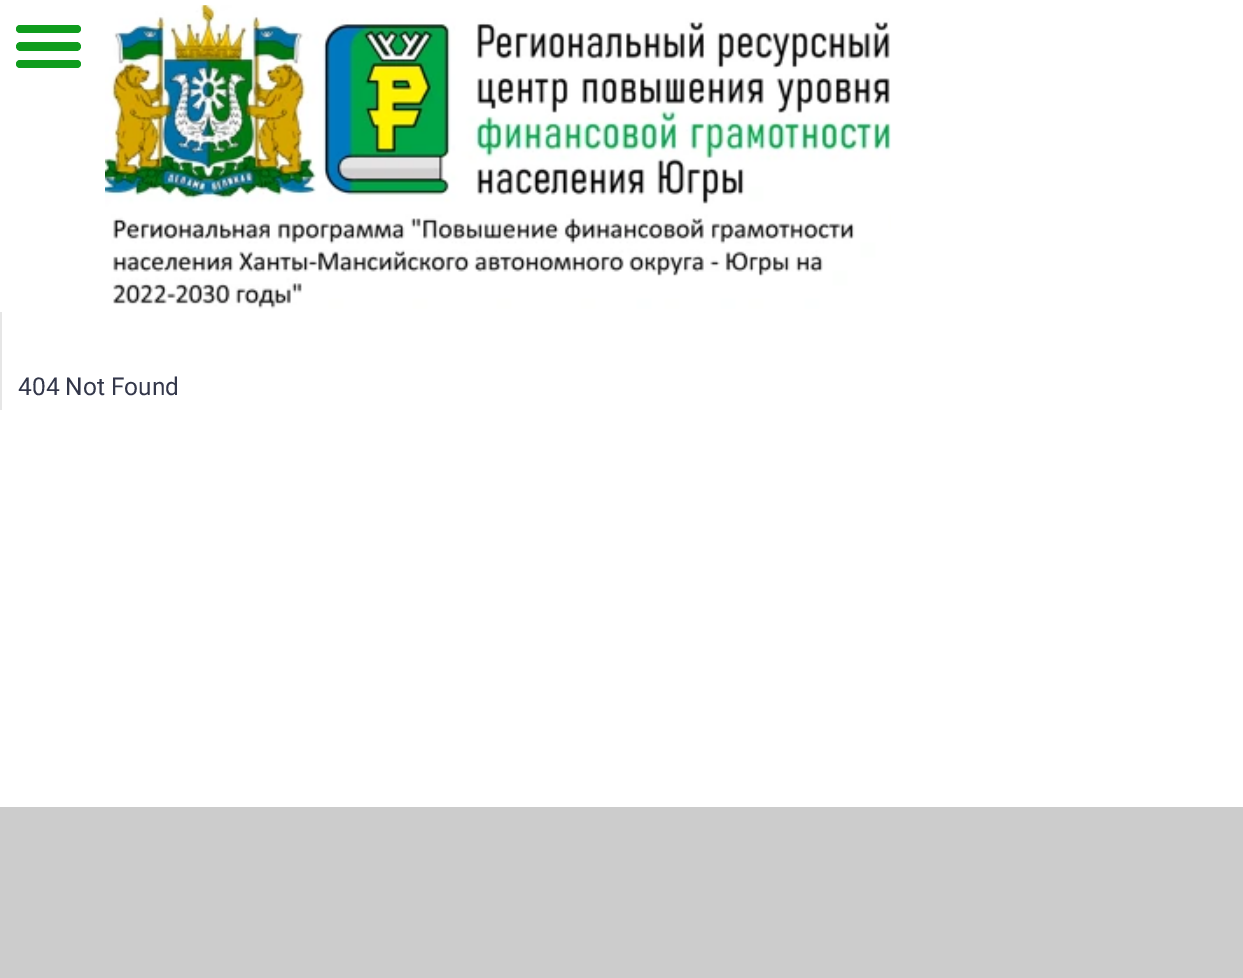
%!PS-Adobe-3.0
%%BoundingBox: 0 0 1243 978
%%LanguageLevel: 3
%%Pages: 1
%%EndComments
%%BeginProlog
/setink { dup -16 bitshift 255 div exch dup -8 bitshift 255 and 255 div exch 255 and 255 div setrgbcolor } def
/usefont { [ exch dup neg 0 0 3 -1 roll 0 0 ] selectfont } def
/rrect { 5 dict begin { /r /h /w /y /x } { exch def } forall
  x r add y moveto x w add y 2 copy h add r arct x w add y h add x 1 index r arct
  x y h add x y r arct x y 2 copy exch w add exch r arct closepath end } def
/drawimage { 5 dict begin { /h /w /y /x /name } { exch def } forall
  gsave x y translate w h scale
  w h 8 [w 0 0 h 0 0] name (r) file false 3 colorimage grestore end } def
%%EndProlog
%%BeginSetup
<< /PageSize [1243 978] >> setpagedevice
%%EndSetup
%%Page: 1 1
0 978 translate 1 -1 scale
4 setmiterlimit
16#FFFFFF setink
0 0 1243 978 rectfill
16#0F9C1D setink
16 25 65 8 4 rrect fill
16 42 65 9 4.5 rrect fill
16 60 65 8 4 rrect fill
(img1.raw) 105 5 786 304 drawimage
16#E6E6E6 setink
0 312 2 98 rectfill
/Roboto-Regular 24.5 usefont
16#33374A setink
18 395 moveto (404 Not Found) show
16#CCCCCC setink
0 807 1243 171 rectfill
showpage
%%EOF
